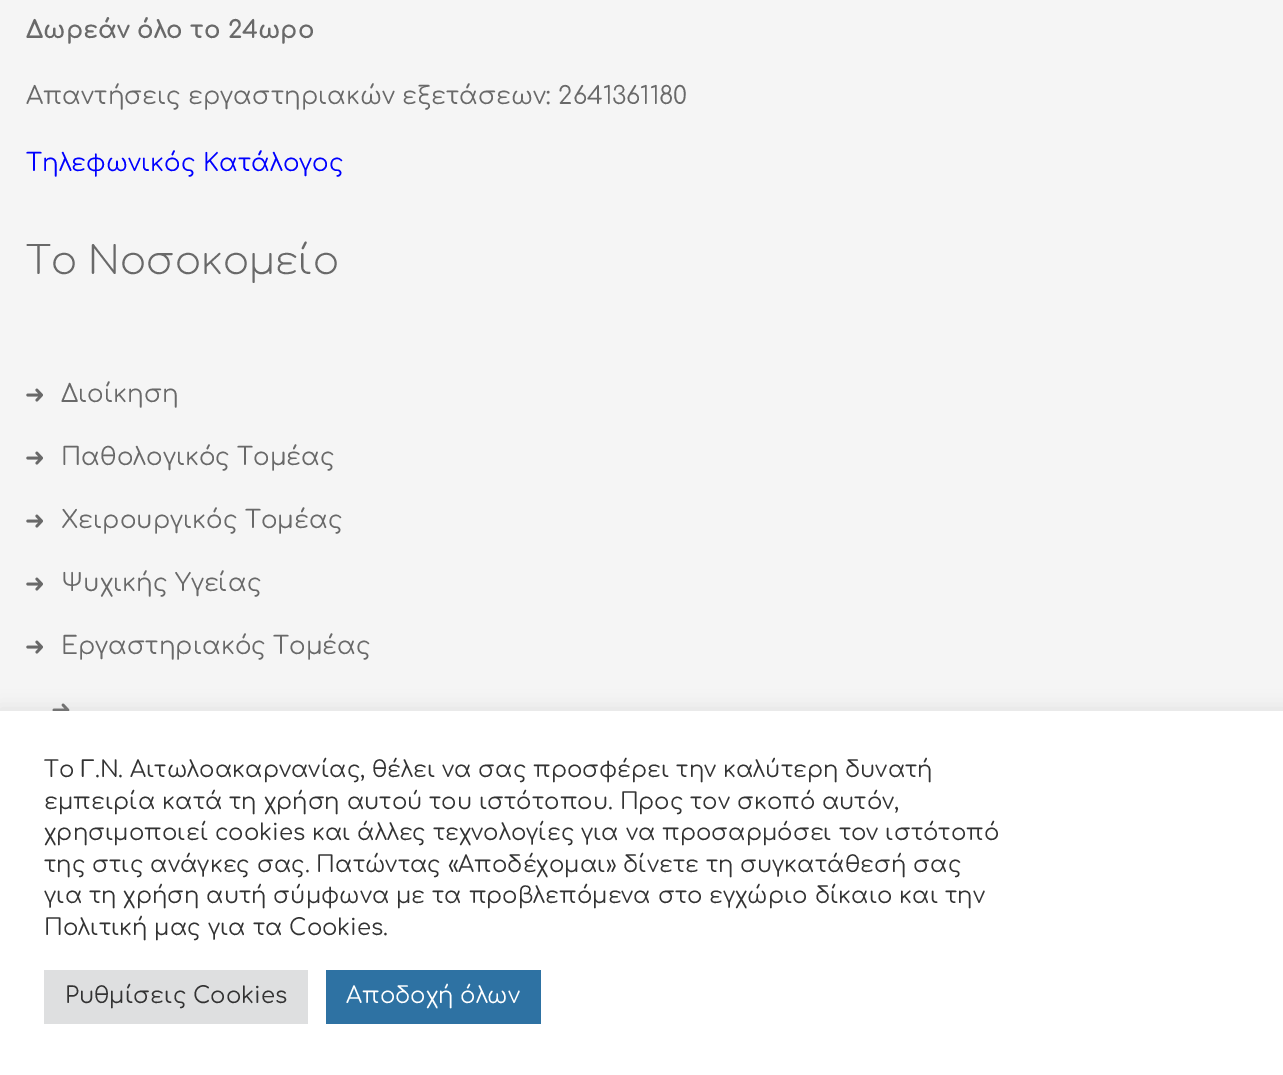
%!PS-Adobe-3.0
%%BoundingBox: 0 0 1283 1075
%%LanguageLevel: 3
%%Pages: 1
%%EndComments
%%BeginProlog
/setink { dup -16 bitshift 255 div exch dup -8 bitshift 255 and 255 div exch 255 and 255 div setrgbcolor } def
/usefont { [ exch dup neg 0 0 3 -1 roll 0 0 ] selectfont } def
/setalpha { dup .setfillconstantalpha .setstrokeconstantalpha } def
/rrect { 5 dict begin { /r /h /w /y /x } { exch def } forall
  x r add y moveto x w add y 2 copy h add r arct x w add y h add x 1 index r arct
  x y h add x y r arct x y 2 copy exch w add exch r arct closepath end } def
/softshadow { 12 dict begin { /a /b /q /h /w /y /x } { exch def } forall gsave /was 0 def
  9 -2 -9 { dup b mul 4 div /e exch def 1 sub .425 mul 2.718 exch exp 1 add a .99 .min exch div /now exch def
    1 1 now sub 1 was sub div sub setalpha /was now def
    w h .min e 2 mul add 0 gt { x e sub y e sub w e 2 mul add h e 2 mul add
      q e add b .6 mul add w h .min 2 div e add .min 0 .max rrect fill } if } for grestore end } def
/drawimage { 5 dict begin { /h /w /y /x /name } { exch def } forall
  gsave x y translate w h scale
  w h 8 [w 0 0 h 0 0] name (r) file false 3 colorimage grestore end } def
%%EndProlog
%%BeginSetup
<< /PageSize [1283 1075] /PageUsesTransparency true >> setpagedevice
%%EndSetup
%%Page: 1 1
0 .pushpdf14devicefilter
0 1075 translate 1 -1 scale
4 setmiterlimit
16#F5F5F5 setink
0 0 1283 1075 rectfill
/Comfortaa-Bold 24.5 usefont
16#696969 setink
26 38 moveto (Δωρεάν όλο το 24ωρο) show
/Comfortaa-Regular 24.5 usefont
26 104 moveto (Απαντήσεις εργαστηριακών εξετάσεων: 2641361180) show
16#0000FF setink
26 171 moveto (Τηλεφωνικός Κατάλογος) show
/Comfortaa-Light 38.5 usefont
16#696969 setink
26 274 moveto (Το Νοσοκομείο) show
(img1.raw) 26 388 17 14 drawimage
/Comfortaa-Regular 24.5 usefont
61 402 moveto (Διοίκηση) show
(img1.raw) 26 451 17 14 drawimage
61 465 moveto (Παθολογικός Τομέας) show
(img1.raw) 26 514 17 14 drawimage
61 528 moveto (Χειρουργικός Τομέας) show
(img1.raw) 26 577 17 14 drawimage
61 591 moveto (Ψυχικής Υγείας) show
(img1.raw) 26 640 17 14 drawimage
61 654 moveto (Εργαστηριακός Τομέας) show
(img2.raw) 52 703 18 8 drawimage
16#ACABAB setink
0 709 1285 366 0 9 0.3 softshadow
16#FFFFFF setink
0 711 1283 364 rectfill
/Comfortaa-Regular 22.75 usefont
16#333333 setink
[
    [(Το Γ.Ν. Αιτωλοακαρνανίας, θέλει να σας προσφέρει την καλύτερη δυνατή) 44 777]
    [(εμπειρία κατά τη χρήση αυτού του ιστότοπου. Προς τον σκοπό αυτόν,) 44 809]
    [(χρησιμοποιεί cookies και άλλες τεχνολογίες για να προσαρμόσει τον ιστότοπό) 44 840]
    [(της στις ανάγκες σας. Πατώντας «Αποδέχομαι» δίνετε τη συγκατάθεσή σας) 44 872]
    [(για τη χρήση αυτή σύμφωνα με τα προβλεπόμενα στο εγχώριο δίκαιο και την) 44 903]
    [(Πολιτική μας για τα Cookies.) 44 935]
] { aload pop moveto show } forall
16#DEDFE0 setink
44 970 264 54 rectfill
16#333333 setink
65 1003 moveto (Ρυθμίσεις Cookies) show
16#2E72A3 setink
326 970 215 54 rectfill
16#FFFFFF setink
346 1003 moveto (Αποδoχή όλων) show
.poppdf14devicefilter showpage
%%EOF
